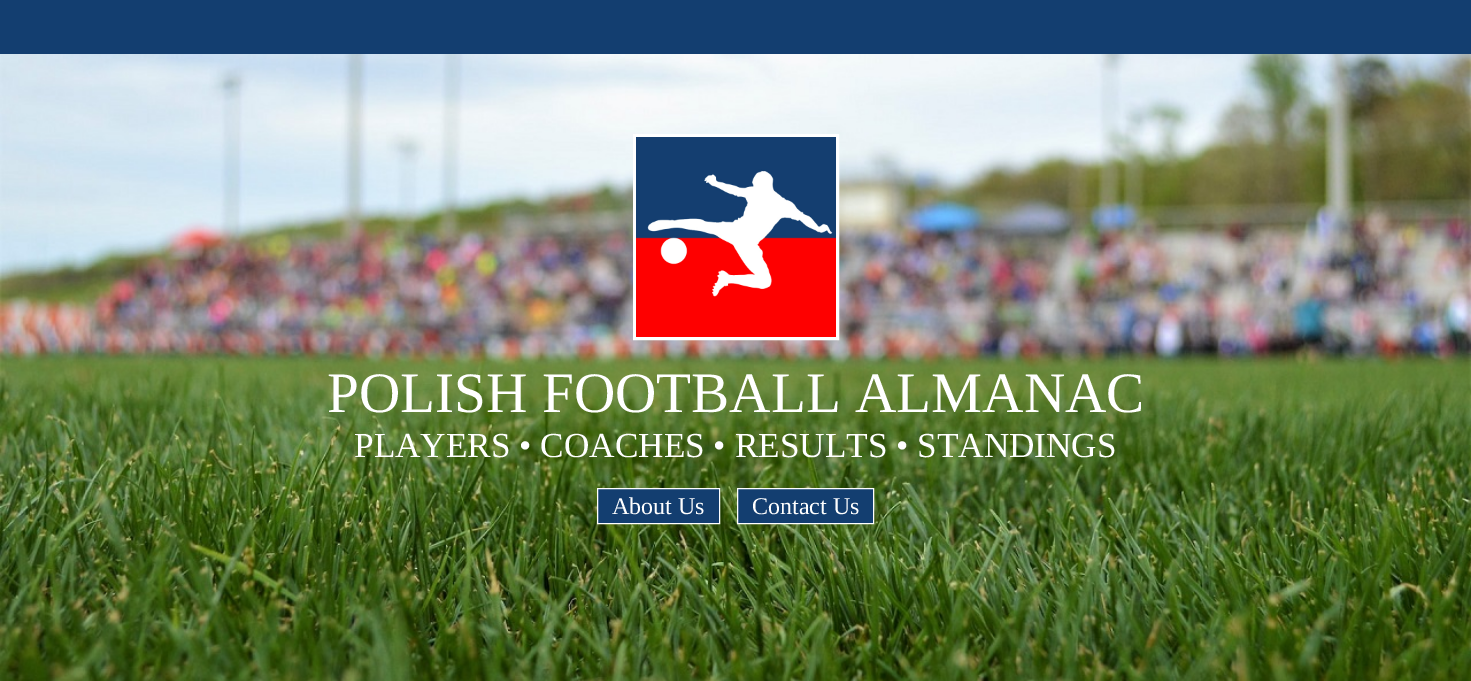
%!PS-Adobe-3.0
%%BoundingBox: 0 0 1471 681
%%LanguageLevel: 3
%%Pages: 1
%%EndComments
%%BeginProlog
/setink { dup -16 bitshift 255 div exch dup -8 bitshift 255 and 255 div exch 255 and 255 div setrgbcolor } def
/usefont { [ exch dup neg 0 0 3 -1 roll 0 0 ] selectfont } def
/drawimage { 5 dict begin { /h /w /y /x /name } { exch def } forall
  gsave x y translate w h scale
  w h 8 [w 0 0 h 0 0] name (r) file false 3 colorimage grestore end } def
%%EndProlog
%%BeginSetup
<< /PageSize [1471 681] >> setpagedevice
%%EndSetup
%%Page: 1 1
0 681 translate 1 -1 scale
4 setmiterlimit
16#133E70 setink
0 0 1471 681 rectfill
(img1.raw) 0 54 1471 627 drawimage
16#FFFFFF setink
3 setlinewidth
634.5 135.5 203 203 rectstroke
(img2.raw) 636 137 200 200 drawimage
/LiberationSerif-Regular 57.25 usefont
327 412 moveto (POLISH FOOTBALL ALMANAC) show
/LiberationSerif-Regular 35.2 usefont
354 457 moveto (PLAYERS • COACHES • RESULTS • STANDINGS) show
16#133E70 setink
597.5 488.5 moveto 719.5 488.5 lineto 719.5 523.5 lineto 597.5 523.5 lineto closepath gsave fill grestore
16#FFFFFF setink
1 setlinewidth
stroke
/LiberationSerif-Regular 24 usefont
612 514 moveto (About Us) show
16#133E70 setink
737.5 488.5 moveto 873.5 488.5 lineto 873.5 523.5 lineto 737.5 523.5 lineto closepath gsave fill grestore
16#FFFFFF setink
stroke
752 514 moveto (Contact Us) show
showpage
%%EOF
